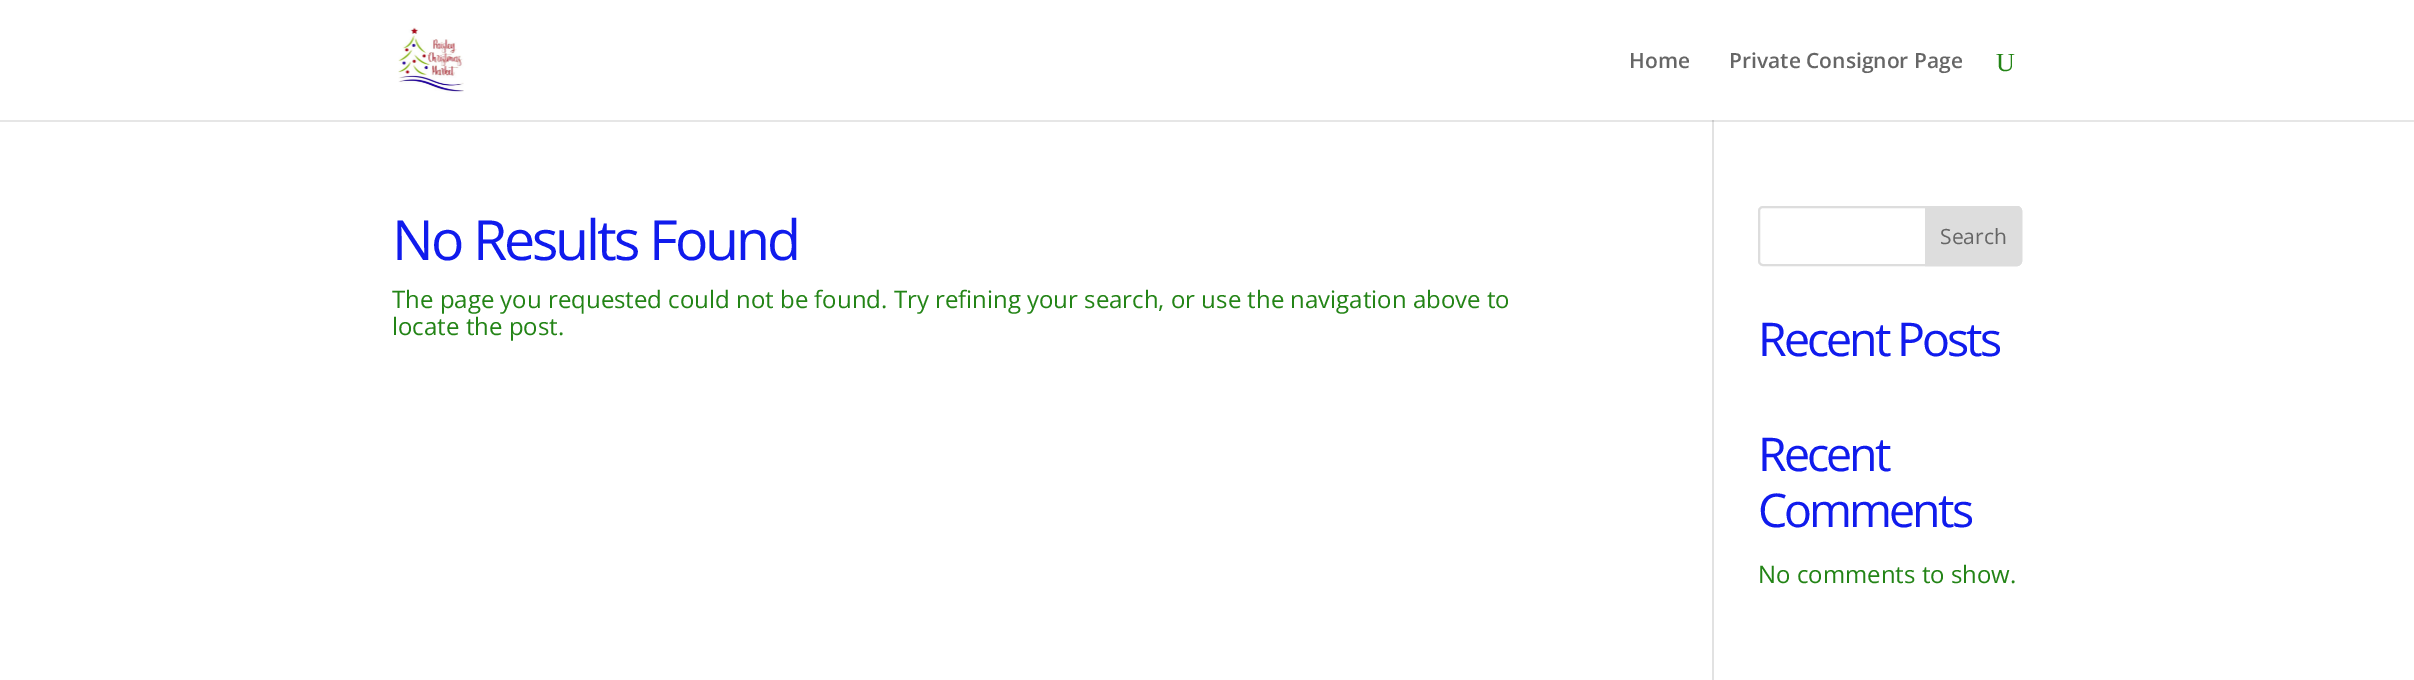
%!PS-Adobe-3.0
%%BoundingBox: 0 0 2414 680
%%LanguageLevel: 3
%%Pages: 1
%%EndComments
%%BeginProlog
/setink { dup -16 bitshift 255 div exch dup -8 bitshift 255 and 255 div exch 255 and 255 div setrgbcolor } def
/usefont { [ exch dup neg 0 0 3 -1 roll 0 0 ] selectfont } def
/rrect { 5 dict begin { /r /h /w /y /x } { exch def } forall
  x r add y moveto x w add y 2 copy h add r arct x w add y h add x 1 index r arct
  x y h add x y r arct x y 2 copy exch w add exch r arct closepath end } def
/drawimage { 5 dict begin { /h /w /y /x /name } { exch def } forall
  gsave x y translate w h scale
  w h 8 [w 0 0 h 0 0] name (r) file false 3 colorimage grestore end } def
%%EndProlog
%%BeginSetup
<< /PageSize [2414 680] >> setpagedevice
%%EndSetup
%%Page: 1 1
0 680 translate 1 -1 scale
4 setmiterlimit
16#FFFFFF setink
0 0 2414 680 rectfill
[
    [0 120 2414 2 16#E6E6E6]
    [1712 119 2 561 16#E2E2E2]
    [1712 119 2 1 16#FFFFFF]
] { aload pop setink rectfill } forall
(img1.raw) 398 27 66 66 drawimage
/OpenSans-SemiBold 21 usefont
16#666666 setink
1629 68 moveto (Home) show
1729 68 moveto (Private Consignor Page) show
/LiberationSerif-Regular 26 usefont
16#238416 setink
1996 71 moveto (U) show
16#CBCBCB setink
1712 120 2 2 rectfill
/OpenSans-Regular 55.5 usefont
16#101BED setink
392 260 moveto -3 0 (No Results Found) ashow
/OpenSans-Regular 24 usefont
16#238416 setink
392 308 moveto (The page you requested could not be found. Try refining your search, or use the navigation above to) show
392 335 moveto (locate the post.) show
16#DDDDDD setink
2 setlinewidth
1759 207 262 58 4 rrect stroke
1926 207 moveto 2017 207 lineto 2019 207 2021 209 2021 211 curveto 2021 261 lineto 2021 263 2019 265 2017 265 curveto 1926 265 lineto closepath gsave fill grestore
stroke
/OpenSans-Regular 21 usefont
16#666666 setink
1940 244 moveto (Search) show
/OpenSans-Regular 46.5 usefont
16#101BED setink
1758 356 moveto -3 0 (Recent Posts) ashow
1758 471 moveto -3 0 (Recent) ashow
1758 527 moveto -3 0 (Comments) ashow
/OpenSans-Regular 24 usefont
16#238416 setink
1758 583 moveto (No comments to show.) show
showpage
%%EOF
